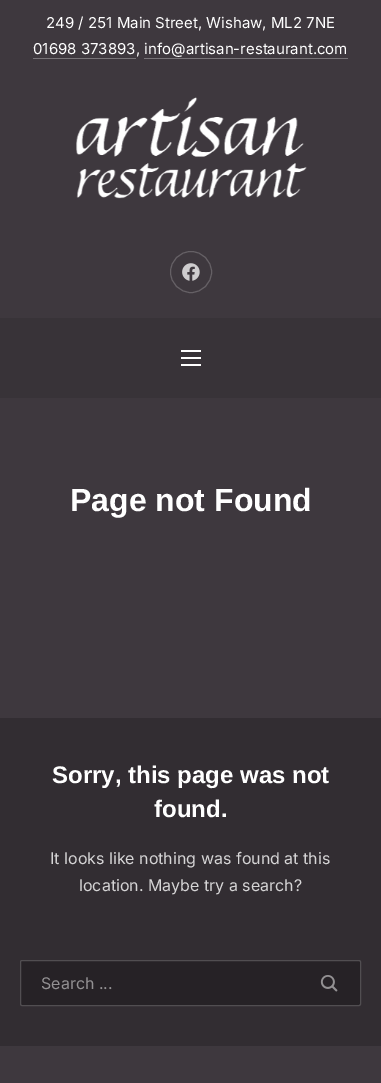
%!PS-Adobe-3.0
%%BoundingBox: 0 0 381 1083
%%LanguageLevel: 3
%%Pages: 1
%%EndComments
%%BeginProlog
/setink { dup -16 bitshift 255 div exch dup -8 bitshift 255 and 255 div exch 255 and 255 div setrgbcolor } def
/usefont { [ exch dup neg 0 0 3 -1 roll 0 0 ] selectfont } def
/disc { newpath 0 360 arc closepath } def
/rrect { 5 dict begin { /r /h /w /y /x } { exch def } forall
  x r add y moveto x w add y 2 copy h add r arct x w add y h add x 1 index r arct
  x y h add x y r arct x y 2 copy exch w add exch r arct closepath end } def
/drawimage { 5 dict begin { /h /w /y /x /name } { exch def } forall
  gsave x y translate w h scale
  w h 8 [w 0 0 h 0 0] name (r) file false 3 colorimage grestore end } def
%%EndProlog
%%BeginSetup
<< /PageSize [381 1083] >> setpagedevice
%%EndSetup
%%Page: 1 1
0 1083 translate 1 -1 scale
4 setmiterlimit
16#322D32 setink
0 0 381 1083 rectfill
16#3E383E setink
0 0 381 318 rectfill
/Inter-Regular 15 usefont
16#FFFFFF setink
46 28 moveto (249 / 251 Main Street, Wishaw, ML2 7NE) show
33 54 moveto (01698 373893, info@artisan-restaurant.com) show
16#787478 setink
33 58 103 1 rectfill
144 58 204 1 rectfill
(img1.raw) 76 97 231 102 drawimage
16#656065 setink
191 272 20.5 disc stroke
(img2.raw) 182 263 18 18 drawimage
[
    [0 318 381 80 16#383338]
    [181 364 20 2 16#FFFFFF]
    [181 357 20 2 16#FFFFFF]
    [181 350 20 2 16#FFFFFF]
    [0 398 381 320 16#3E383E]
] { aload pop setink rectfill } forall
/LiberationSans-Bold 32 usefont
16#FFFFFF setink
70 511 moveto (Page not Found) show
/LiberationSans-Bold 24 usefont
52 783 moveto (Sorry, this page was not) show
154 817 moveto (found.) show
/Inter-Regular 16 usefont
16#D6D5D6 setink
50 864 moveto (It looks like nothing was found at this) show
79 891 moveto (location. Maybe try a search?) show
16#262226 setink
20.5 960.5 340 45 1.5 rrect gsave fill grestore
16#514E51 setink
stroke
16#939193 setink
41 989 moveto (Search ...) show
(img3.raw) 320 975 18 17 drawimage
16#3E383E setink
0 1046 381 37 rectfill
showpage
%%EOF
